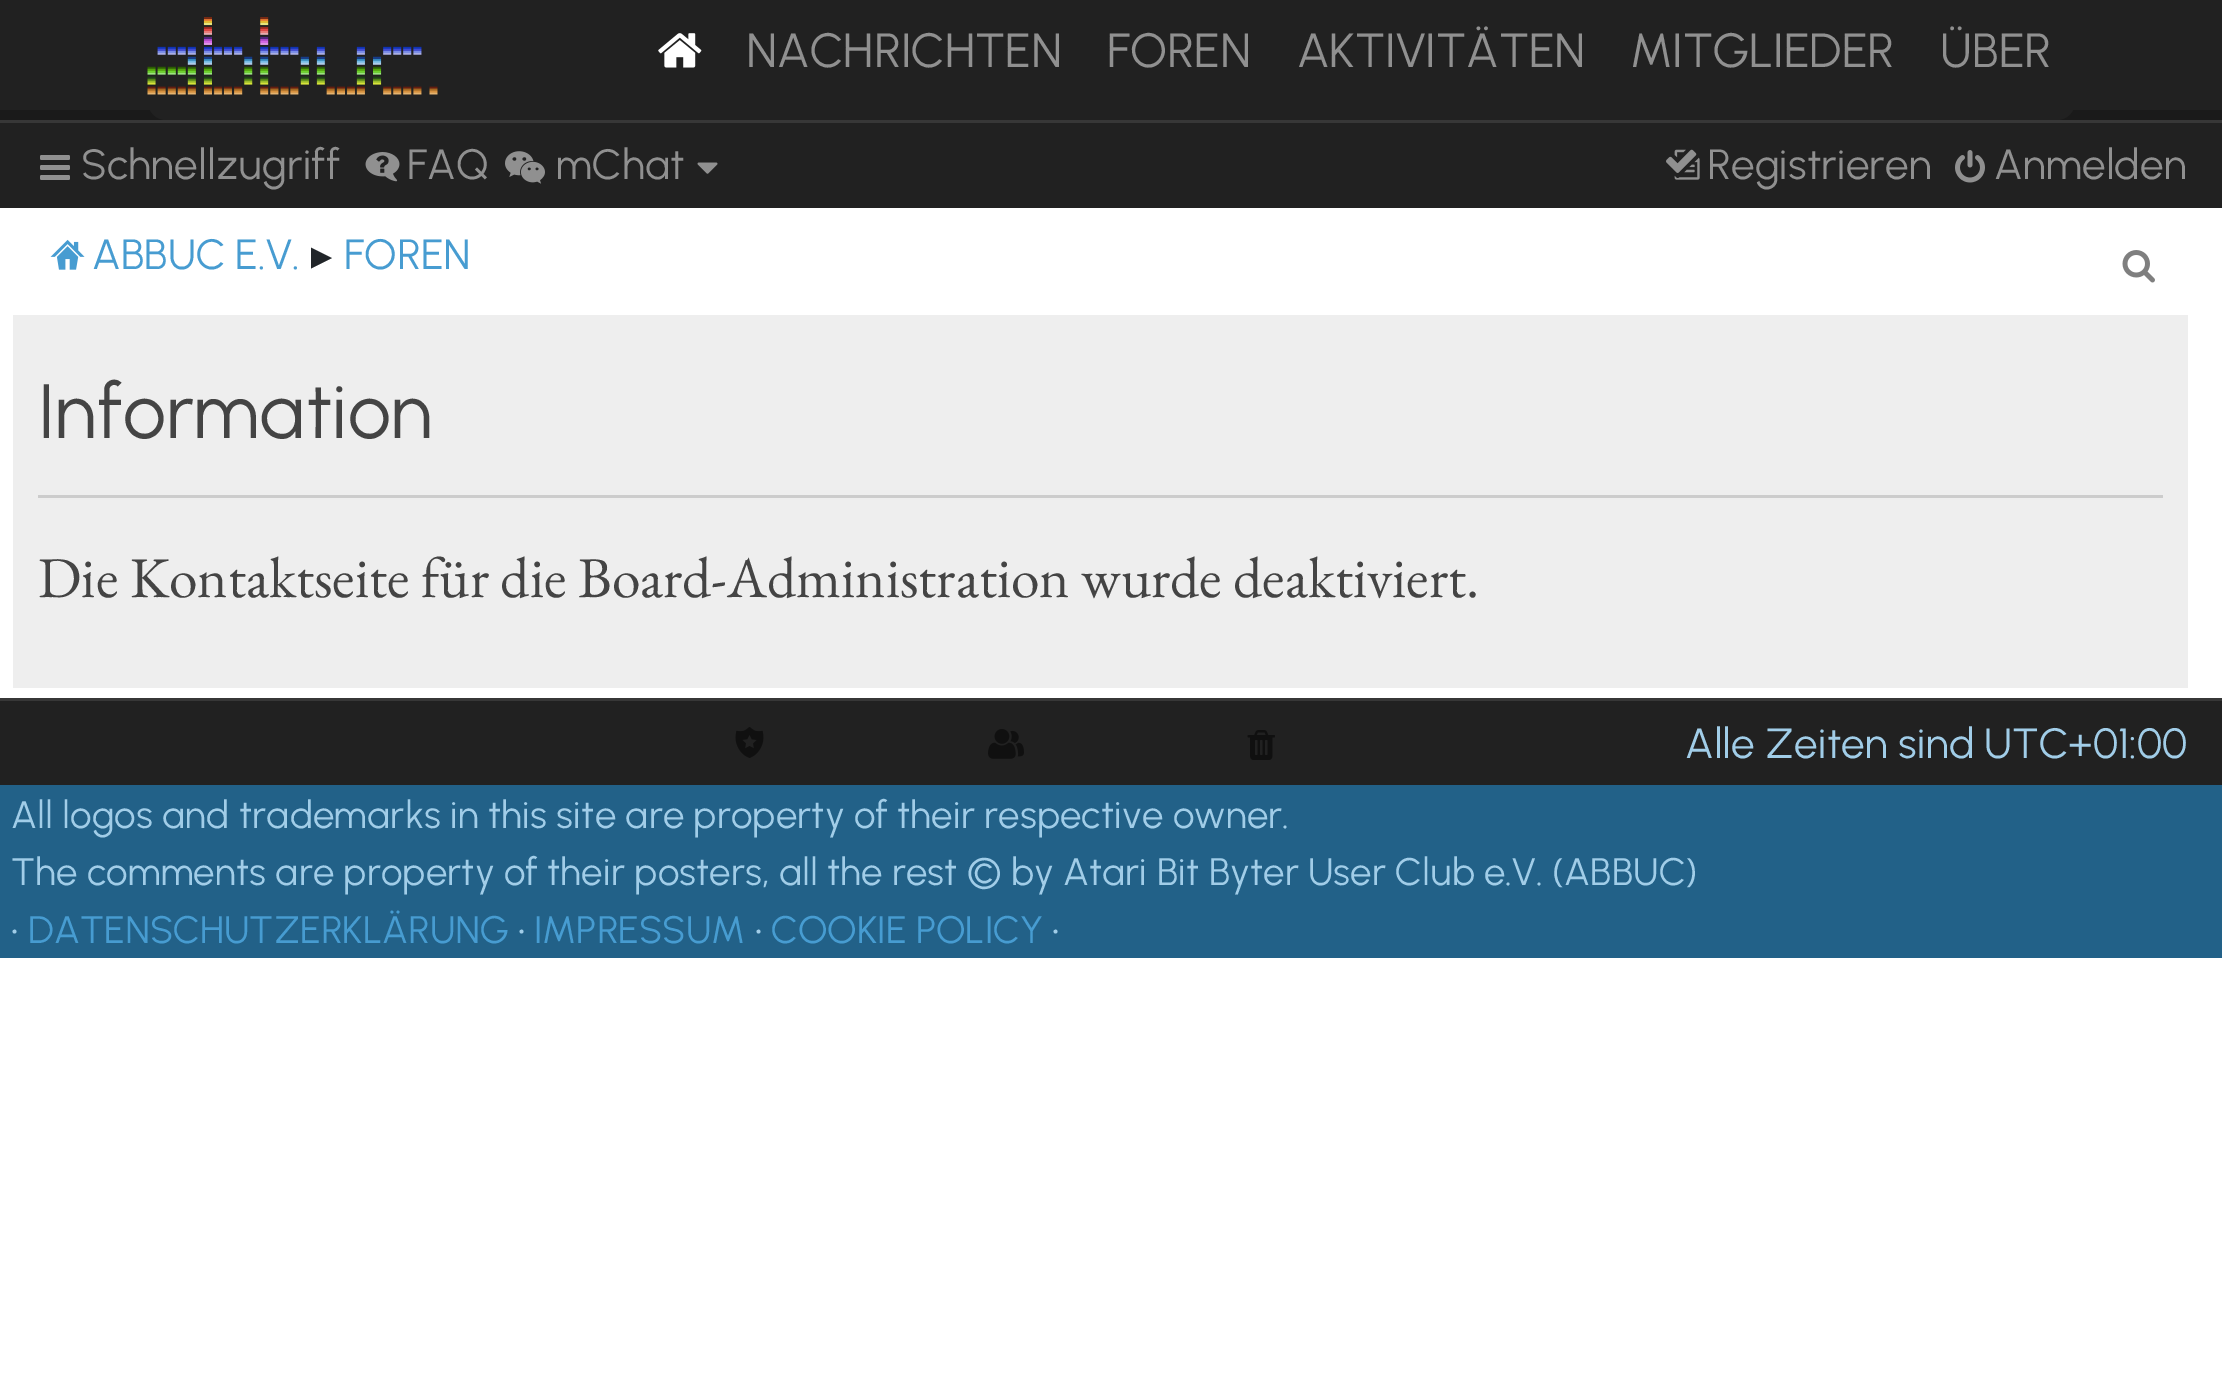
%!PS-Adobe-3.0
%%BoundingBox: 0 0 2222 1382
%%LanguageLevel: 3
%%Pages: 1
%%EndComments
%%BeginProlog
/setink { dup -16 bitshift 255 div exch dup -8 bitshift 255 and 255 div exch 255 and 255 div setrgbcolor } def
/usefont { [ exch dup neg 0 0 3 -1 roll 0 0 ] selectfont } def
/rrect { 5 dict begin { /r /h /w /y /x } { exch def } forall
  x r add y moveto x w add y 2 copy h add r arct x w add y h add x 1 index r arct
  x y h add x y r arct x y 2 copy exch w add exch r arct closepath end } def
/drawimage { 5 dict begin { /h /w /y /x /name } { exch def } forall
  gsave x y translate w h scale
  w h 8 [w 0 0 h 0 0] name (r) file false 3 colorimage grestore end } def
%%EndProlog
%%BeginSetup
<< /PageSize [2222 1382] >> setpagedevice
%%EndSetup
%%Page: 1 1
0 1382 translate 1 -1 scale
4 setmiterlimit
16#FFFFFF setink
0 0 2222 1382 rectfill
16#212121 setink
0 0 2222 110 rectfill
16#1A1A1A setink
0 110 2222 10 rectfill
16#212121 setink
148 -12 1927 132 18 rrect fill
(img1.raw) 147 17 291 78 drawimage
(img2.raw) 658 33 44 35 drawimage
/Urbanist-Regular 48 usefont
16#909090 setink
[
    [(NACHRICHTEN) 746 67]
    [(FOREN) 1107 67]
    [(AKTIVITÄTEN) 1297 67]
    [(MITGLIEDER) 1630 67]
    [(ÜBER) 1940 67]
] { aload pop moveto show } forall
16#212121 setink
0 123 2222 85 rectfill
16#373737 setink
0 120 2222 3 rectfill
(img3.raw) 40 155 30 25 drawimage
/Urbanist-Regular 42.25 usefont
16#909090 setink
81 179 moveto (Schnellzugriff) show
(img4.raw) 365 152 35 30 drawimage
407 179 moveto (FAQ) show
(img5.raw) 505 151 40 33 drawimage
556 179 moveto (mChat) show
(img6.raw) 697 162 21 12 drawimage
(img7.raw) 1666 149 34 31 drawimage
1707 179 moveto (Registrieren) show
(img8.raw) 1955 150 30 33 drawimage
1994 179 moveto (Anmelden) show
(img9.raw) 50 239 35 31 drawimage
16#479CD1 setink
92 269 moveto (ABBUC E.V.) show
/DejaVuSans-Regular 42.25 usefont
16#212529 setink
311 269 moveto (▸) show
/Urbanist-Regular 42.25 usefont
16#479CD1 setink
344 269 moveto (FOREN) show
(img10.raw) 2122 250 33 33 drawimage
16#EEEEEE setink
13 315 2175 373 rectfill
16#CCCCCC setink
38 495 2125 3 rectfill
/Urbanist-Regular 76.75 usefont
16#444444 setink
38 438 moveto (Information) show
/EBGaramond-Regular 57.6 usefont
38 597 moveto (Die Kontaktseite für die Board-Administration wurde deaktiviert.) show
16#212121 setink
0 701 2222 84 rectfill
16#373737 setink
0 698 2222 3 rectfill
(img11.raw) 735 727 29 31 drawimage
(img12.raw) 988 729 36 30 drawimage
(img13.raw) 1247 730 28 30 drawimage
/Urbanist-Regular 42.25 usefont
16#A1CDE8 setink
1685 758 moveto (Alle Zeiten sind) show
1984 758 moveto (UTC+01:00) show
16#226188 setink
0 785 2222 173 rectfill
/Urbanist-Regular 38.4 usefont
16#A1CDE8 setink
[
    [(All logos and trademarks in this site are property of their respective owner.) 11 828]
    [(The comments are property of their posters, all the rest © by Atari Bit Byter User Club e.V. \(ABBUC\)) 11 885]
    [(•) 11 943]
] { aload pop moveto show } forall
16#479CD1 setink
28 943 moveto (DATENSCHUTZERKLÄRUNG) show
16#A1CDE8 setink
518 943 moveto (•) show
16#479CD1 setink
534 943 moveto (IMPRESSUM) show
16#A1CDE8 setink
755 943 moveto (•) show
16#479CD1 setink
771 943 moveto (COOKIE POLICY) show
16#A1CDE8 setink
1052 943 moveto (•) show
showpage
%%EOF
